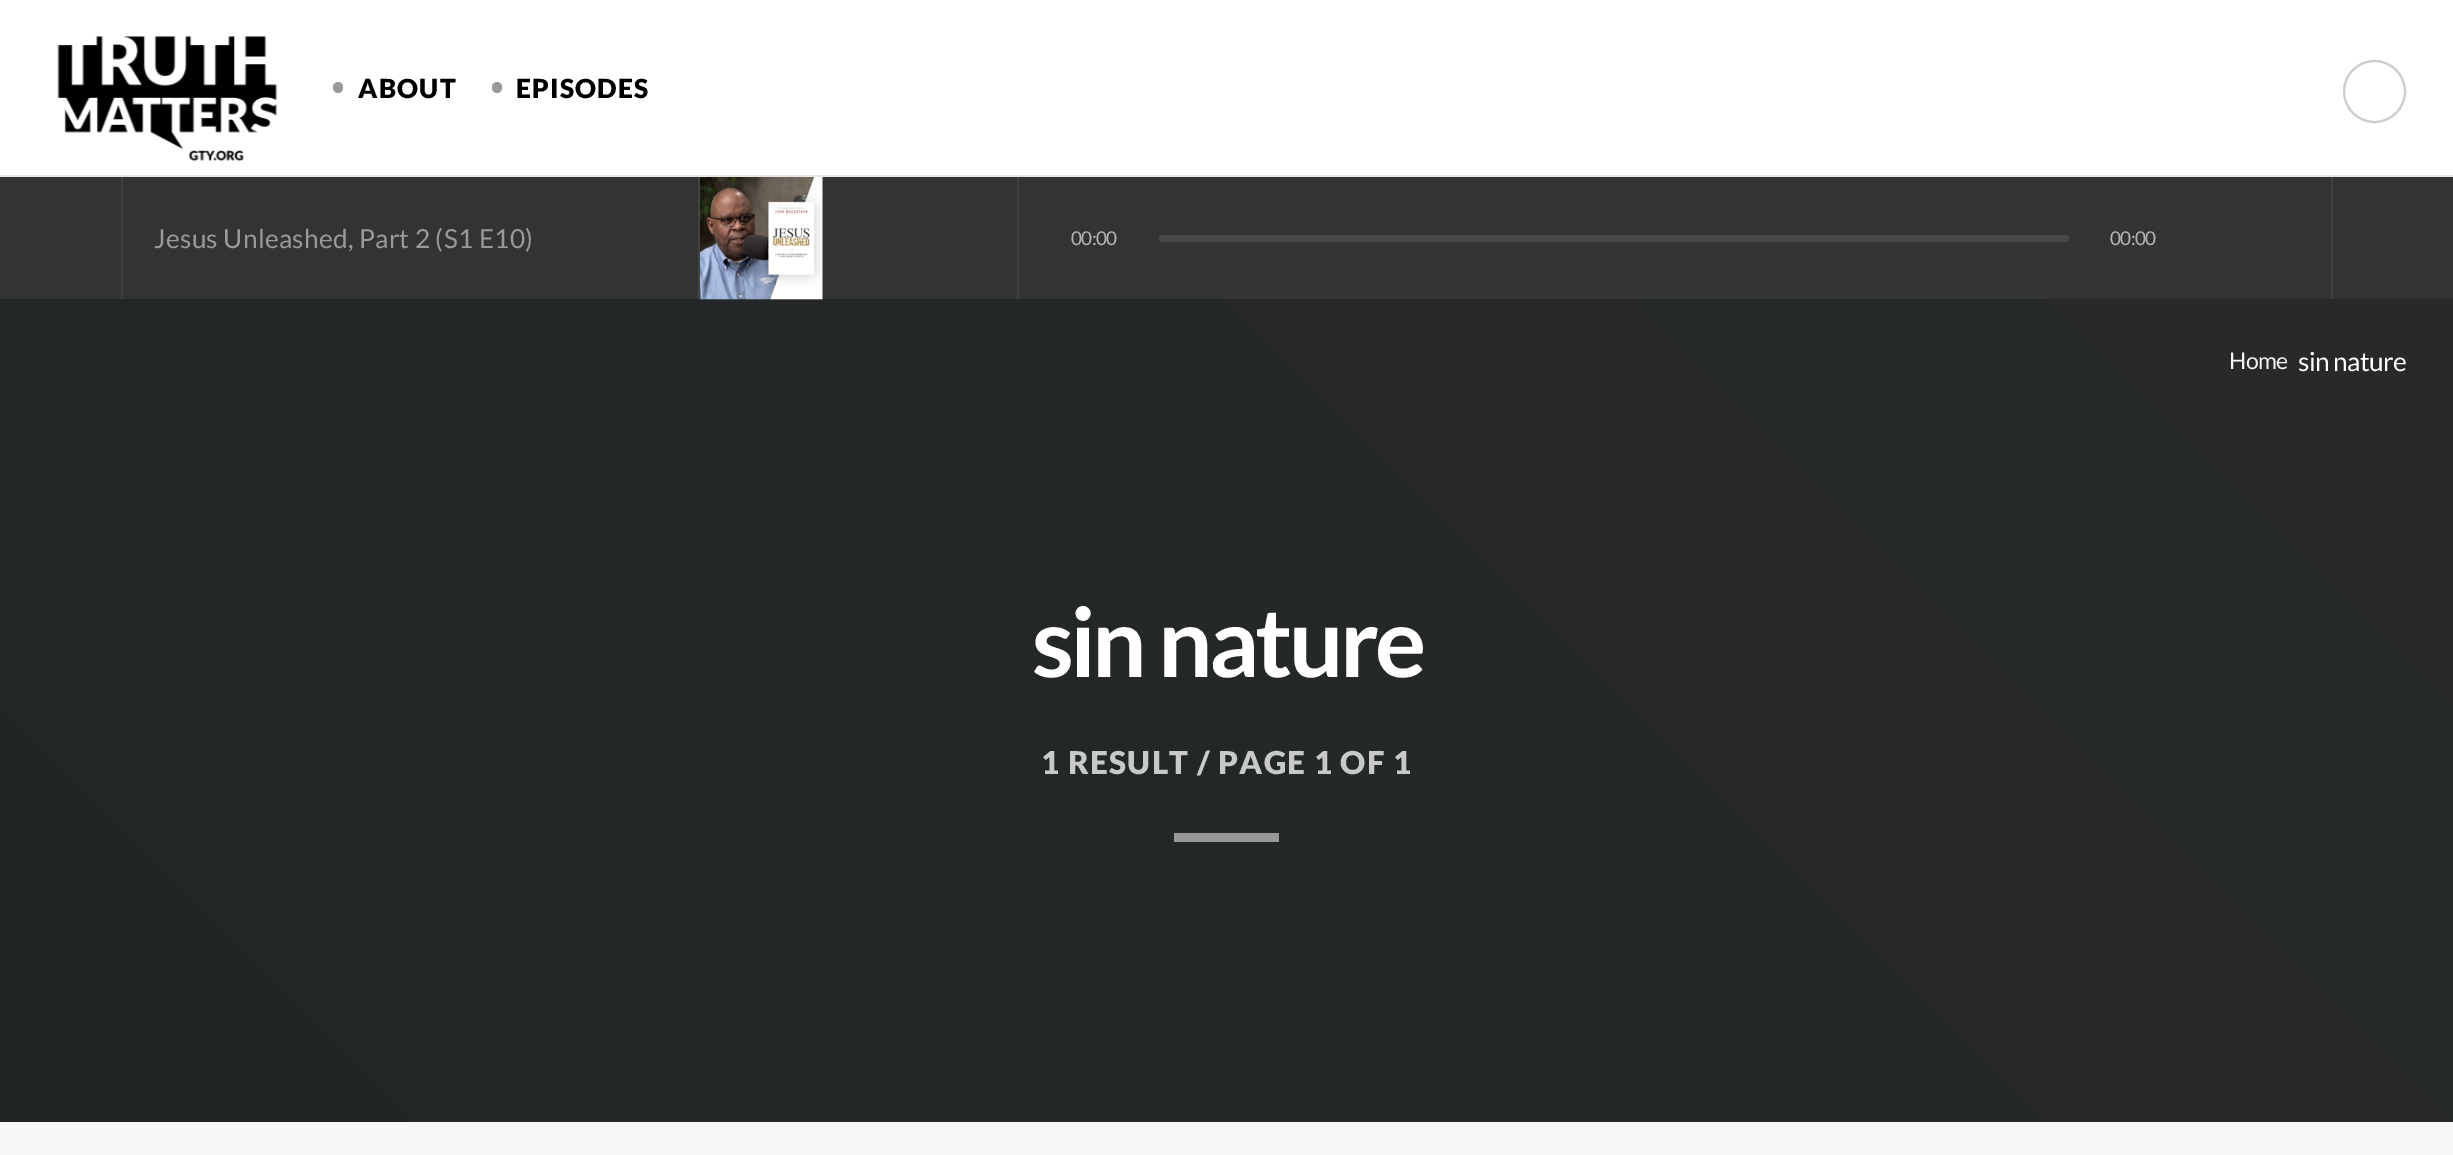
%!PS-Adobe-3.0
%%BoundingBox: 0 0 2453 1155
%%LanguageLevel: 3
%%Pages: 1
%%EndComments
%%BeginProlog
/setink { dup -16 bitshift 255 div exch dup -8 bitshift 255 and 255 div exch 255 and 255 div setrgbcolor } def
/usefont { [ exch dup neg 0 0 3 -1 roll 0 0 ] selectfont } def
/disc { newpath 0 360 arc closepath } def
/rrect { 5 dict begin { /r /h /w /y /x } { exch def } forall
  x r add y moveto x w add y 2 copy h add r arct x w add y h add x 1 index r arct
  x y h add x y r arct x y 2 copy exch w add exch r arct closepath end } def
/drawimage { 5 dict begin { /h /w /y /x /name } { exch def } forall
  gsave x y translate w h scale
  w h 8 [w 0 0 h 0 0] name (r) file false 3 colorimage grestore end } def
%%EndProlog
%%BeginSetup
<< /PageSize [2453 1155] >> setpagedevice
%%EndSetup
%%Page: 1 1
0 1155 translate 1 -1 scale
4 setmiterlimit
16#F6F6F6 setink
0 0 2453 1155 rectfill
16#FFFFFF setink
0 0 2453 175 rectfill
16#E8E8E8 setink
0 175 2453 2 rectfill
(img1.raw) 57 36 221 125 drawimage
16#999999 setink
333 82 10 11 5 rrect fill
/Lato-Black 26.25 usefont
16#000000 setink
358 98 moveto 1.25 0 (ABOUT) ashow
16#999999 setink
492 82 10 11 5 rrect fill
16#000000 setink
516 98 moveto 1.25 0 (EPISODES) ashow
16#CCCCCC setink
2 setlinewidth
2374.5 91.5 30.5 disc stroke
[
    [0 177 2453 122 16#333333]
    [698 177 2 122 16#424242]
    [121 177 2 122 16#424242]
] { aload pop setink rectfill } forall
/Lato-Regular 26.25 usefont
16#999999 setink
154 248 moveto 0.25 0 (Jesus Unleashed, Part 2 \(S1 E10\)) ashow
gsave 0 299 moveto 2453 299 lineto 2453 1122 lineto 0 1122 lineto closepath clip newpath
<< /ShadingType 2 /ColorSpace /DeviceRGB /Coords [408 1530 2046 -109] /Extend [true true] /Function << /FunctionType 2 /Domain [0 1] /C0 [0.133 0.145 0.149] /C1 [0.157 0.165 0.169] /N 1 >> >> shfill grestore
(img2.raw) 700 177 123 123 drawimage
16#424242 setink
1017 177 2 122 rectfill
/Lato-Regular 19 usefont
16#B4B4B4 setink
1071 245 moveto -0.6 0 (00:00) ashow
16#474747 setink
1159 235 910 7 3.5 rrect fill
16#B4B4B4 setink
2110 245 moveto -0.6 0 (00:00) ashow
16#424242 setink
2331 177 2 122 rectfill
/Lato-Regular 23 usefont
16#F4F4F4 setink
2229 369 moveto -0.6 0 (Home) ashow
/Lato-Regular 26.25 usefont
16#FFFFFF setink
2298 371 moveto -0.6 0 (sin nature) ashow
/Lato-Bold 96 usefont
1032 677 moveto -3.75 0 (sin nature) ashow
/Lato-Black 31.5 usefont
16#C8C9C9 setink
1041 774 moveto 1.25 0 (1 RESULT / PAGE 1 OF 1) ashow
16#999999 setink
1174 833 105 9 rectfill
showpage
%%EOF
